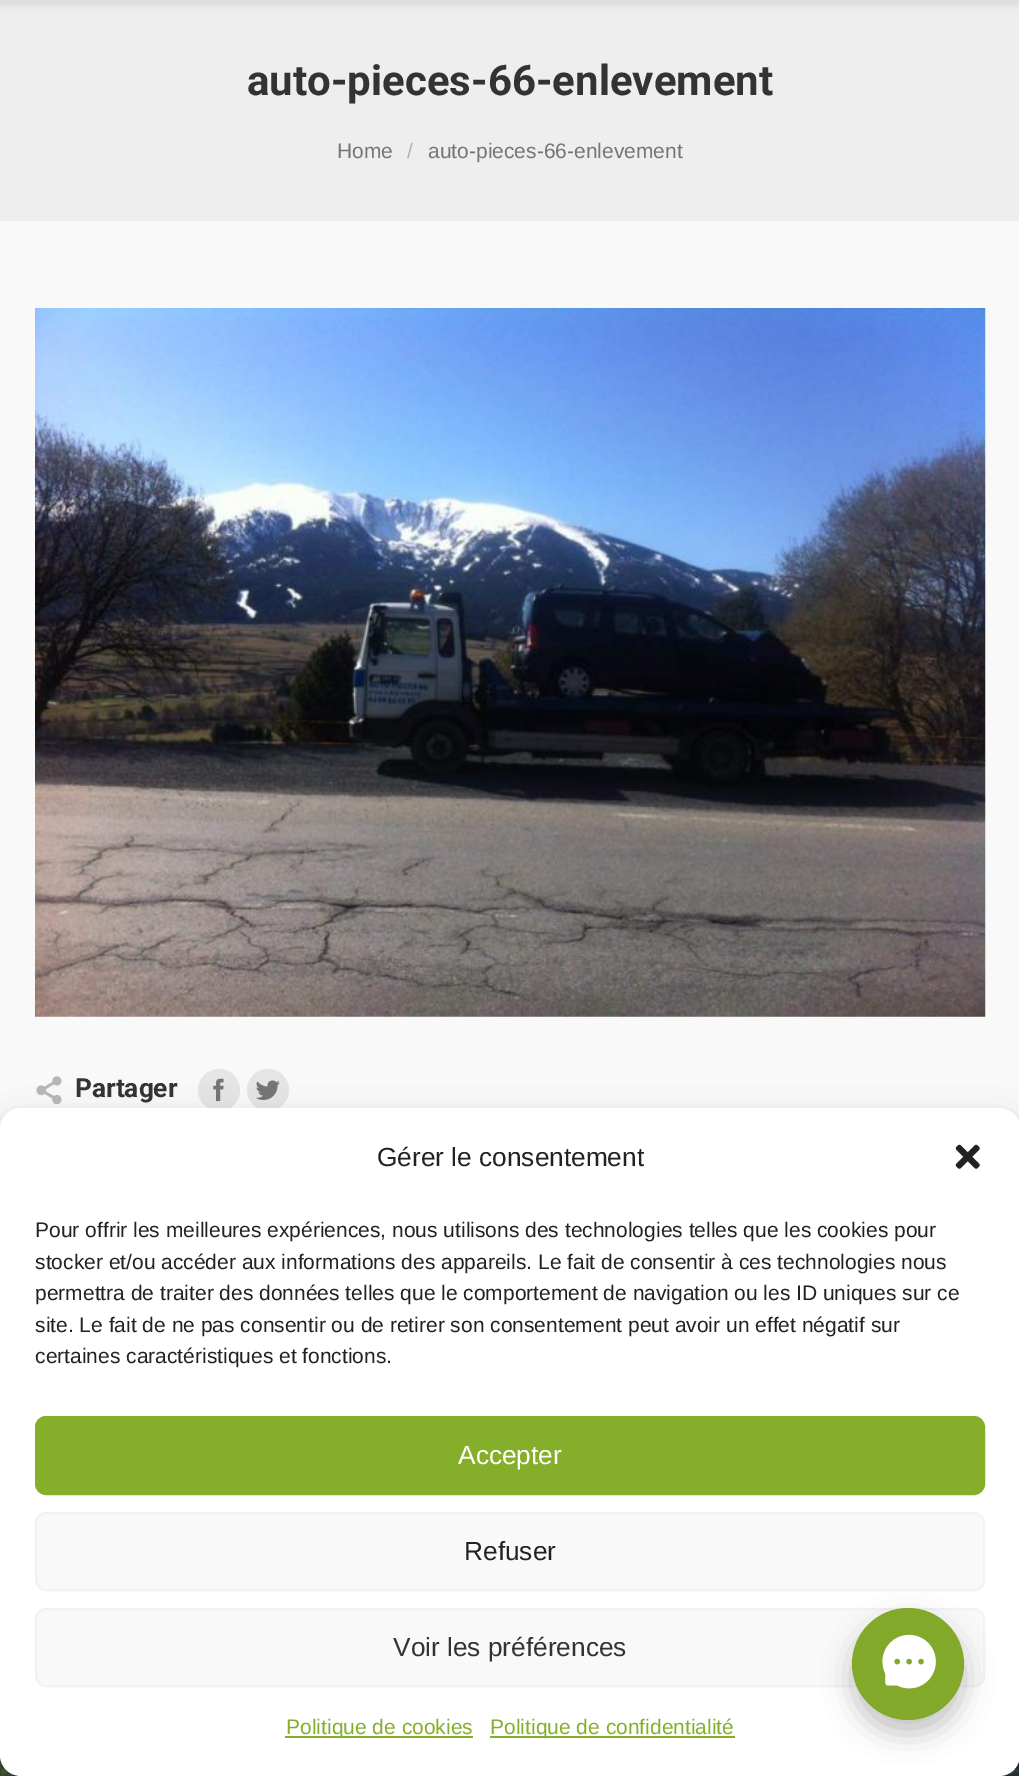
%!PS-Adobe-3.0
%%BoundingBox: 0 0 1019 1776
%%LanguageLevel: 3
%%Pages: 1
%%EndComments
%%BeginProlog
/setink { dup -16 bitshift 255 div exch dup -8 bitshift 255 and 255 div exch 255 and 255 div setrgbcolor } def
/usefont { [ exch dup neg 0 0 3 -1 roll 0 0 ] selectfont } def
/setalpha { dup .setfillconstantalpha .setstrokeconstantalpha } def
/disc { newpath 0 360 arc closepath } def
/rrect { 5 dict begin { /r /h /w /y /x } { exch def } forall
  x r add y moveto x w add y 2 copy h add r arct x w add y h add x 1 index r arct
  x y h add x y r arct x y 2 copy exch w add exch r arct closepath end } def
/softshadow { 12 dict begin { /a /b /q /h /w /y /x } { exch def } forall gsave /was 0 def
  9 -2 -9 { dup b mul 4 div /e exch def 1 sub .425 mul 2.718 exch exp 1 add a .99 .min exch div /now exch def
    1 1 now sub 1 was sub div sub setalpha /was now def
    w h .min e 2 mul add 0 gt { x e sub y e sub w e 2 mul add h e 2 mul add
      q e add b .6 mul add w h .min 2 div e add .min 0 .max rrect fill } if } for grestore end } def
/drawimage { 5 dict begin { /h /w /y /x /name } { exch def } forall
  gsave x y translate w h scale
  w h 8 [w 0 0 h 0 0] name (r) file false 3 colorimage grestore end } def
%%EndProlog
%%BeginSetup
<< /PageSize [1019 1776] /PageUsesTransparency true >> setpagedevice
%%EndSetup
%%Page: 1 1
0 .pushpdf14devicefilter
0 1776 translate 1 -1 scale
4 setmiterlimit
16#FFFFFF setink
0 0 1019 1776 rectfill
(img1.raw) 0 1755 1019 21 drawimage
16#F9F9F9 setink
0 221 1019 908 rectfill
16#EEEEEE setink
0 0 1019 221 rectfill
16#000000 setink
0 0 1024 4 0 3.5 0.1 softshadow
/Roboto-Bold 42 usefont
16#333333 setink
247 95 moveto (auto-pieces-66-enlevement) show
/LiberationSans-Regular 21 usefont
16#757575 setink
337 158 moveto (Home) show
16#B2B2B2 setink
407 158 moveto (/) show
16#757575 setink
428 158 moveto (auto-pieces-66-enlevement) show
(img2.raw) 35 308 951 709 drawimage
(img3.raw) 36 1076 26 28 drawimage
/Roboto-Bold 26.25 usefont
16#333333 setink
75 1097 moveto (Partager) show
16#E5E5E5 setink
219 1090 21 disc fill
(img4.raw) 213 1078 11 24 drawimage
268 1090 21 disc fill
(img5.raw) 256 1080 24 20 drawimage
16#000000 setink
0 1118 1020 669 21 5 0.23 softshadow
0 1125 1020 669 21 17.5 0.19 softshadow
16#FFFFFF setink
0 1108 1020 668 21 rrect fill
/LiberationSans-Regular 26.25 usefont
16#222222 setink
377 1166 moveto (Gérer le consentement) show
(img6.raw) 955 1144 25 25 drawimage
/LiberationSans-Regular 21 usefont
[
    [(Pour offrir les meilleures expériences, nous utilisons des technologies telles que les cookies pour) 35 1237]
    [(stocker et/ou accéder aux informations des appareils. Le fait de consentir à ces technologies nous) 35 1269]
    [(permettra de traiter des données telles que le comportement de navigation ou les ID uniques sur ce) 35 1300]
    [(site. Le fait de ne pas consentir ou de retirer son consentement peut avoir un effet négatif sur) 35 1332]
    [(certaines caractéristiques et fonctions.) 35 1363]
] { aload pop moveto show } forall
16#85AE2B setink
36 1417 948 77 10 rrect gsave fill grestore
2 setlinewidth
stroke
/LiberationSans-Regular 26.25 usefont
16#FFFFFF setink
458 1464 moveto (Accepter) show
16#F9F9F9 setink
36 1513 948 77 10 rrect gsave fill grestore
16#F2F2F2 setink
stroke
16#222222 setink
464 1560 moveto (Refuser) show
16#F9F9F9 setink
36 1609 948 77 10 rrect gsave fill grestore
16#F2F2F2 setink
stroke
16#333333 setink
393 1656 moveto (Voir les préférences) show
16#85AE2B setink
285 1736 188 2 rectfill
/LiberationSans-Regular 21 usefont
286 1734 moveto (Politique de cookies) show
490 1736 245 2 rectfill
490 1734 moveto (Politique de confidentialité) show
16#000000 setink
852 1622 112 112 56 14 0.24 softshadow
16#82A92A setink
908 1664 56 disc fill
(img7.raw) 882 1634 54 55 drawimage
.poppdf14devicefilter showpage
%%EOF
